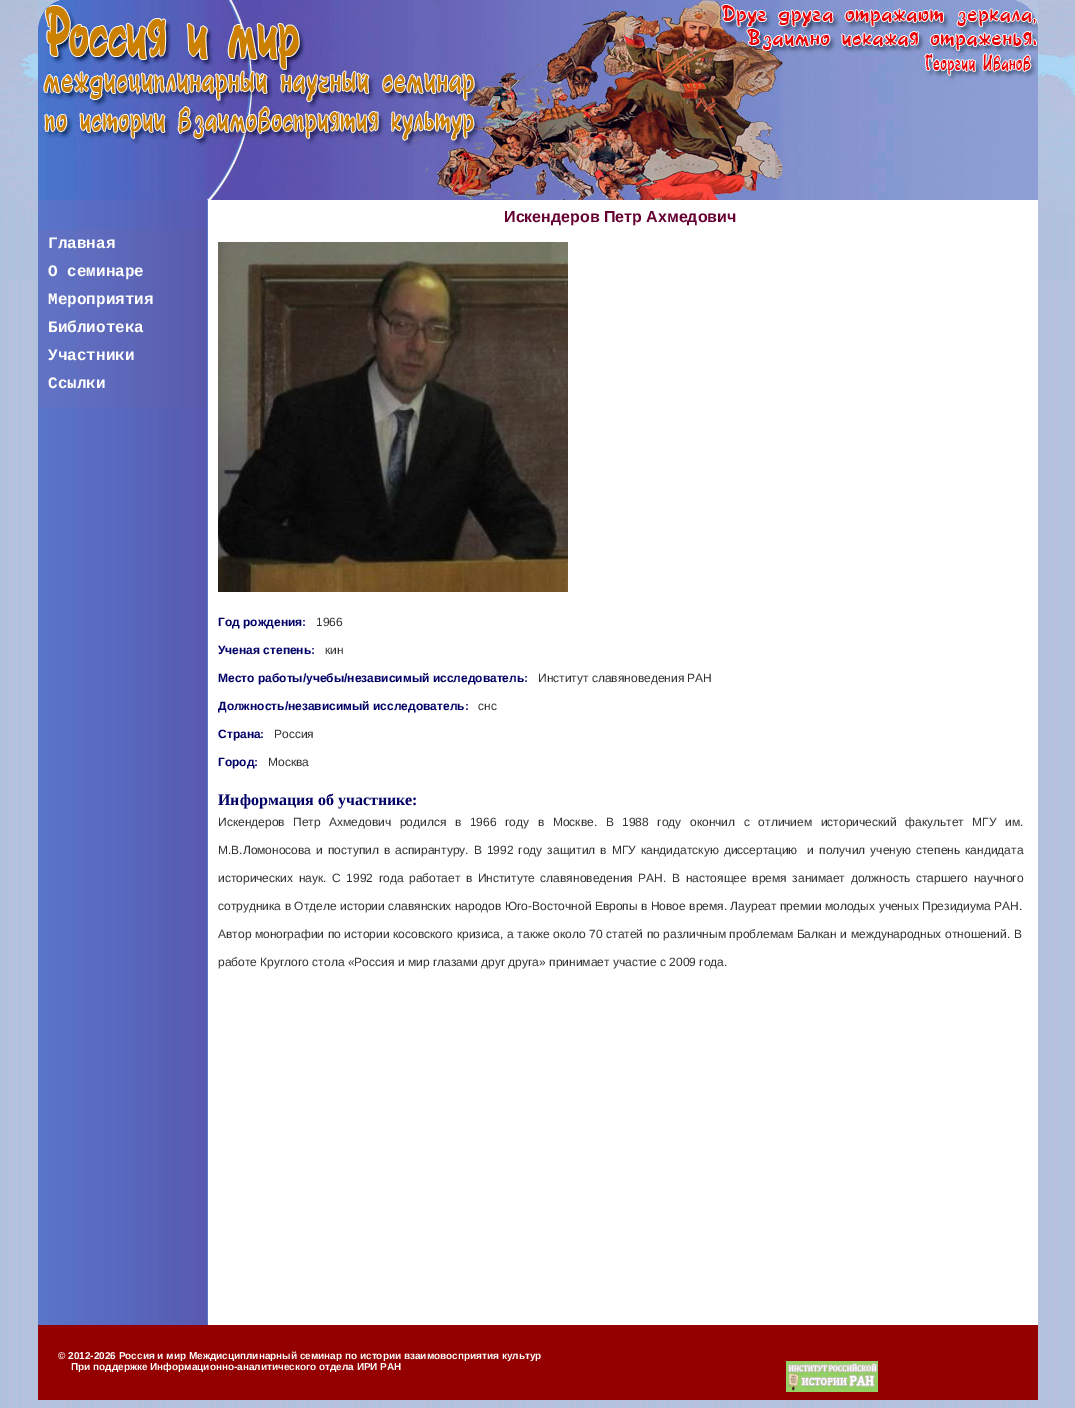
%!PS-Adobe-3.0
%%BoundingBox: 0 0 1075 1408
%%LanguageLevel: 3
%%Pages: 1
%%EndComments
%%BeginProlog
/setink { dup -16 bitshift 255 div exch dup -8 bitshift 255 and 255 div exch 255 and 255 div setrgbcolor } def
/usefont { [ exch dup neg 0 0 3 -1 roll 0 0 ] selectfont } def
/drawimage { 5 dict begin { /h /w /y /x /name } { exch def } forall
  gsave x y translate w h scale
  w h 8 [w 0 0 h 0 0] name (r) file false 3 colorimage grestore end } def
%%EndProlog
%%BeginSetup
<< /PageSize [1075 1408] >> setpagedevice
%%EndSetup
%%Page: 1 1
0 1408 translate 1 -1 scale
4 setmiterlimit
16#FFFFFF setink
0 0 1075 1408 rectfill
(img1.raw) 0 280 1075 1128 drawimage
(img2.raw) 0 0 1075 280 drawimage
208 200 830 1125 rectfill
(img3.raw) 38 200 170 1125 drawimage
(img4.raw) 38 0 1000 200 drawimage
(img5.raw) 38 230 169 28 drawimage
/LiberationMono-Bold 16 usefont
48 248 moveto (Главная) show
(img5.raw) 38 258 169 28 drawimage
48 276 moveto (О семинаре) show
(img5.raw) 38 286 169 28 drawimage
48 304 moveto (Мероприятия) show
(img5.raw) 38 314 169 28 drawimage
48 332 moveto (Библиотека) show
(img5.raw) 38 342 169 28 drawimage
48 360 moveto (Участники) show
(img5.raw) 38 370 169 28 drawimage
48 388 moveto (Ссылки) show
(img6.raw) 38 398 169 10 drawimage
/LiberationSans-Bold 16 usefont
16#660033 setink
504 222 moveto (Искендеров Петр Ахмедович) show
(img7.raw) 218 242 350 350 drawimage
/LiberationSans-Bold 12 usefont
16#000066 setink
218 626 moveto (Год рождения:) show
/LiberationSans-Regular 12 usefont
16#333333 setink
316 626 moveto (1966) show
/LiberationSans-Bold 12 usefont
16#000066 setink
218 654 moveto (Ученая степень:) show
/LiberationSans-Regular 12 usefont
16#333333 setink
325 654 moveto (кин) show
/LiberationSans-Bold 12 usefont
16#000066 setink
218 682 moveto (Место работы/учебы/независимый исследователь:) show
/LiberationSans-Regular 12 usefont
16#333333 setink
538 682 moveto (Институт славяноведения РАН) show
/LiberationSans-Bold 12 usefont
16#000066 setink
218 710 moveto (Должность/независимый исследователь:) show
/LiberationSans-Regular 12 usefont
16#333333 setink
478 710 moveto (снс) show
/LiberationSans-Bold 12 usefont
16#000066 setink
218 738 moveto (Страна:) show
/LiberationSans-Regular 12 usefont
16#333333 setink
274 738 moveto (Россия) show
/LiberationSans-Bold 12 usefont
16#000066 setink
218 766 moveto (Город:) show
/LiberationSans-Regular 12 usefont
16#333333 setink
268 766 moveto (Москва) show
/LiberationSerif-Bold 16 usefont
16#000066 setink
218 805 moveto (Информация об участнике:) show
/LiberationSans-Regular 12 usefont
16#333333 setink
218 826 moveto 5.25 0 32 (Искендеров Петр Ахмедович родился в 1966 году в Москве. В 1988 году окончил с отличием исторический факультет МГУ им.) widthshow
218 854 moveto 1.7 0 32 (М.В.Ломоносова и поступил в аспирантуру. В 1992 году защитил в МГУ кандидатскую диссертацию  и получил ученую степень кандидата) widthshow
218 882 moveto 2.25 0 32 (исторических наук. С 1992 года работает в Институте славяноведения РАН. В настоящее время занимает должность старшего научного) widthshow
218 910 moveto 0.1 0 32 (сотрудника в Отделе истории славянских народов Юго-Восточной Европы в Новое время. Лауреат премии молодых ученых Президиума РАН.) widthshow
218 938 moveto 0.3 0 32 (Автор монографии по истории косовского кризиса, а также около 70 статей по различным проблемам Балкан и международных отношений. В) widthshow
218 966 moveto (работе Круглого стола «Россия и мир глазами друг друга» принимает участие с 2009 года.) show
16#940000 setink
38 1325 1000 75 rectfill
/LiberationSans-Bold 10 usefont
16#FFFFFF setink
58 1359 moveto (© 2012-2026 Россия и мир Междисциплинарный семинар по истории взаимовосприятия культур) show
71 1370 moveto (При поддержке Информационно-аналитического отдела ИРИ РАН) show
(img8.raw) 786 1361 92 31 drawimage
showpage
%%EOF
